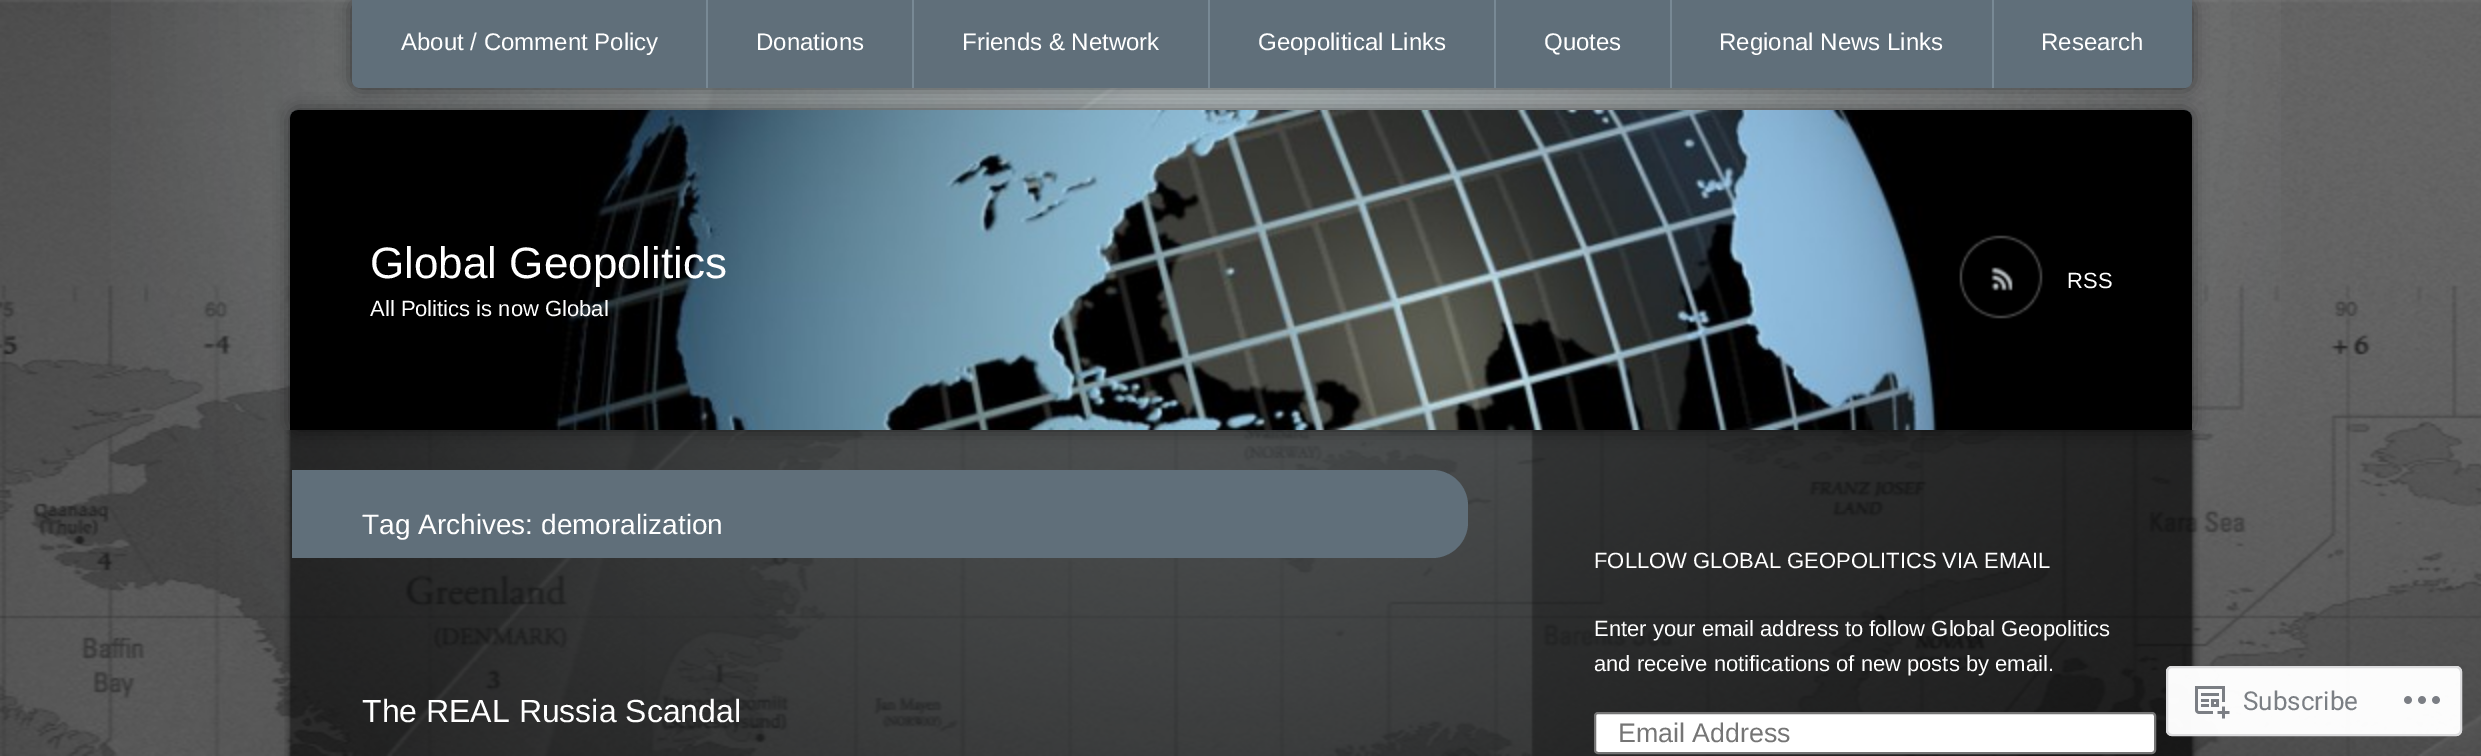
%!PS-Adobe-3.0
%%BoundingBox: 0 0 2481 756
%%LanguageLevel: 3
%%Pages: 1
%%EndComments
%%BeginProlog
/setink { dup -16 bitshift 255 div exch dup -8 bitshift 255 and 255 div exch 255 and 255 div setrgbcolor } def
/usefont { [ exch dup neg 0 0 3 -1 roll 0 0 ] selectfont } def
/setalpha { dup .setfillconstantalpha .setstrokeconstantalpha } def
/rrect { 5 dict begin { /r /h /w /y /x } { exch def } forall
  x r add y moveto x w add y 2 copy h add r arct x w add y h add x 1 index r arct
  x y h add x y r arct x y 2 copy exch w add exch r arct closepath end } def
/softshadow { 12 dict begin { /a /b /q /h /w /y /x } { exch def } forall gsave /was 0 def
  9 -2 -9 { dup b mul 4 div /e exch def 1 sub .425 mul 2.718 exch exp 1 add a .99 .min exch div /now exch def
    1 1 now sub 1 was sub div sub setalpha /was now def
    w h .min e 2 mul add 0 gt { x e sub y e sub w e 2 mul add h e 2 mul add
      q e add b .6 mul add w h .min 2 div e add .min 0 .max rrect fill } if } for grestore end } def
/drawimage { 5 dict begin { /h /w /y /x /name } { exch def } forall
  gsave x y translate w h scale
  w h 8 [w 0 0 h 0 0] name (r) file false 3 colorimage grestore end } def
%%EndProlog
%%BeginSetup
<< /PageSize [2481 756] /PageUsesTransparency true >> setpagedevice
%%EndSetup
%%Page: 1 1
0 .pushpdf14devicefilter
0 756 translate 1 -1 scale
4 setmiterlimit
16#FFFFFF setink
0 0 2481 756 rectfill
(img1.raw) 0 0 2481 756 drawimage
(img2.raw) 111 0 2170 756 drawimage
16#000000 setink
352 0 1840 88 8 8 0.5 softshadow
16#606F7A setink
352 0 moveto 2192 0 lineto 2192 80 lineto 2192 84.5 2188.5 88 2184 88 curveto 360 88 lineto 355.5 88 352 84.5 352 80 curveto closepath fill
/LiberationSans-Regular 24 usefont
16#FFFFFF setink
401 50 moveto (About / Comment Policy) show
16#788995 setink
706 0 2 88 rectfill
16#FFFFFF setink
756 50 moveto (Donations) show
16#788995 setink
912 0 2 88 rectfill
16#FFFFFF setink
962 50 moveto (Friends & Network) show
16#788995 setink
1208 0 2 88 rectfill
16#FFFFFF setink
1258 50 moveto (Geopolitical Links) show
16#788995 setink
1494 0 2 88 rectfill
16#FFFFFF setink
1544 50 moveto (Quotes) show
16#788995 setink
1670 0 2 88 rectfill
16#FFFFFF setink
1719 50 moveto (Regional News Links) show
16#788995 setink
1992 0 2 88 rectfill
16#FFFFFF setink
2041 50 moveto (Research) show
(img5.raw) 284 430 1916 326 drawimage
16#000000 setink
290 110 1902 320 8 8 0.5 softshadow
(img3.raw) 290 110 1902 320 drawimage
/LiberationSans-Regular 44 usefont
16#FFFFFF setink
370 278 moveto (Global Geopolitics) show
/LiberationSans-Regular 22 usefont
370 316 moveto (All Politics is now Global) show
(img4.raw) 1959 235 84 84 drawimage
2067 288 moveto (RSS) show
16#606F7A setink
292 470 moveto 1432 470 lineto 1452 470 1468 486 1468 506 curveto 1468 522 lineto 1468 542 1452 558 1432 558 curveto 292 558 lineto closepath fill
/LiberationSans-Regular 28 usefont
16#FFFFFF setink
362 534 moveto (Tag Archives: demoralization) show
/LiberationSans-Regular 32 usefont
362 722 moveto (The REAL Russia Scandal) show
/LiberationSans-Regular 22 usefont
[
    [(FOLLOW GLOBAL GEOPOLITICS VIA EMAIL) 1594 568]
    [(Enter your email address to follow Global Geopolitics) 1594 636]
    [(and receive notifications of new posts by email.) 1594 671]
] { aload pop moveto show } forall
1595 713 560 40 3 rrect gsave fill grestore
16#767676 setink
2 setlinewidth
stroke
/LiberationSans-Regular 26.75 usefont
16#757575 setink
1618 742 moveto (Email Address) show
0.98 setalpha
16#FFFFFF setink
2166 666 296 70 6 rrect fill
16#DCDCDE setink
2167 667 294 68 5 rrect stroke
1 setalpha
(img6.raw) 2195 686 35 33 drawimage
/Roboto-Regular 26 usefont
16#7B7F84 setink
2243 710 moveto (Subscribe) show
(img7.raw) 2404 696 36 8 drawimage
.poppdf14devicefilter showpage
%%EOF
